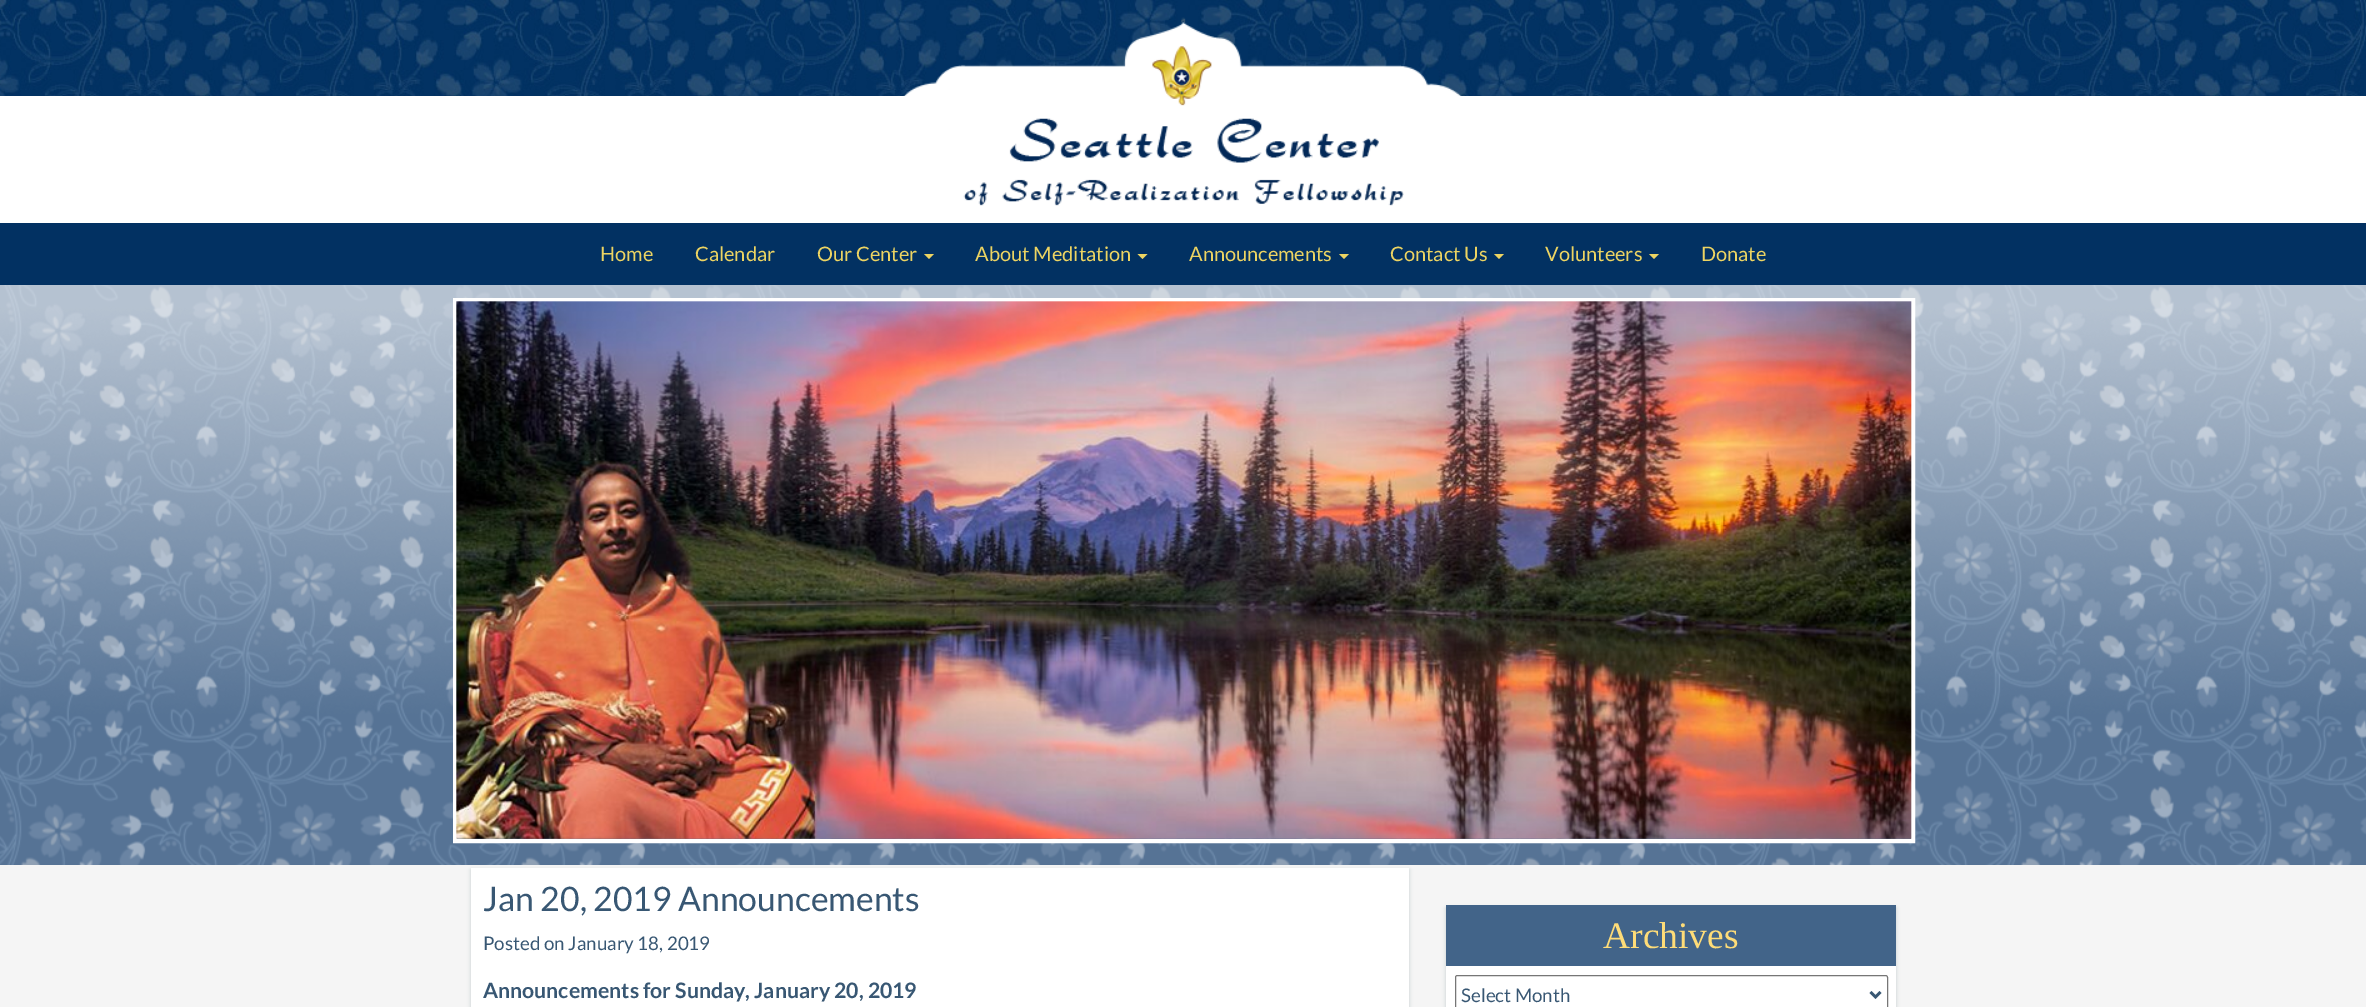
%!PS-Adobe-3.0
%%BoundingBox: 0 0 2366 1007
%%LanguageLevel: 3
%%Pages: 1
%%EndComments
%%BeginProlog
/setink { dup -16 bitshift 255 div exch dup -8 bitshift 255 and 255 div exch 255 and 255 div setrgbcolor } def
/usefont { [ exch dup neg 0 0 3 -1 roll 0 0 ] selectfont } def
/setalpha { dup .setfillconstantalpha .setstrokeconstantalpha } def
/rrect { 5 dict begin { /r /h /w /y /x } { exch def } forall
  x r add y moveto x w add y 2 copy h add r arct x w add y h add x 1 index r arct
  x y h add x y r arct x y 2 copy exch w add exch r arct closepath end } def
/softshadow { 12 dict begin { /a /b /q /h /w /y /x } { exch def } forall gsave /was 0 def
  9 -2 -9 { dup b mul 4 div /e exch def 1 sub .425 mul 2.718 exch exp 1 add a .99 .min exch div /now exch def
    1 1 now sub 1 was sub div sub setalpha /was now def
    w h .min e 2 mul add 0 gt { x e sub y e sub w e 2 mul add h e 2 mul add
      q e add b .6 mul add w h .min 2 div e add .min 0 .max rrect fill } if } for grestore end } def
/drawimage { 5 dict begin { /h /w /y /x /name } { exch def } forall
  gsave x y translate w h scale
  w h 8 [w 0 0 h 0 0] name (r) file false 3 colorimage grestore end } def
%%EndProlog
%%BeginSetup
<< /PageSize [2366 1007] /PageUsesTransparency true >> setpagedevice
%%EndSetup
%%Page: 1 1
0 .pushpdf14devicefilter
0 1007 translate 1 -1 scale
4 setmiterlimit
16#F5F5F5 setink
0 0 2366 1007 rectfill
(img1.raw) 0 0 2366 96 drawimage
16#FFFFFF setink
0 96 2366 127 rectfill
(img2.raw) 903 17 559 189 drawimage
16#023162 setink
0 223 2366 62 rectfill
/Lato-Regular 20 usefont
16#EDD462 setink
[
    [(Home) 600 261]
    [(Calendar) 695 261]
    [(Our Center) 817 261]
] { aload pop moveto show } forall
924 254 moveto 934 254 lineto 929 259 lineto closepath fill
975 261 moveto (About Meditation) show
1137.5 254 moveto 1147.5 254 lineto 1142.5 259 lineto closepath fill
1189 261 moveto (Announcements) show
1339 254 moveto 1349 254 lineto 1344 259 lineto closepath fill
1390 261 moveto (Contact Us) show
1494 254 moveto 1504 254 lineto 1499 259 lineto closepath fill
1545 261 moveto (Volunteers) show
1649 254 moveto 1659 254 lineto 1654 259 lineto closepath fill
1701 261 moveto (Donate) show
(img3.raw) 0 285 2366 580 drawimage
16#FFFFFF setink
4 setlinewidth
455 300 1458 541 rectstroke
(img4.raw) 456 301 1456 538 drawimage
16#C3CACD setink
471 870 938 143 0 2 1 softshadow
16#FFFFFF setink
471 868 938 139 rectfill
/Lato-Regular 33.75 usefont
16#385773 setink
483 911 moveto (Jan 20, 2019 Announcements) show
/Lato-Regular 18.75 usefont
483 950 moveto (Posted on January 18, 2019) show
/Lato-Bold 21.25 usefont
483 998 moveto (Announcements for Sunday, January 20, 2019) show
16#C3CACD setink
1446 908 450 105 0 2 1 softshadow
16#FFFFFF setink
1446 966 450 41 rectfill
16#426489 setink
1446 905 450 61 rectfill
/LiberationSerif-Regular 37.5 usefont
16#FEDC78 setink
1603 948 moveto (Archives) show
16#767676 setink
1 setlinewidth
1455.5 975.5 432 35 2 rrect stroke
16#385773 setink
2.5 setlinewidth
1870.5 992 moveto 1875.5 997 lineto 1880.5 992 lineto stroke
/Lato-Regular 18.75 usefont
1461 1002 moveto (Select Month) show
.poppdf14devicefilter showpage
%%EOF
